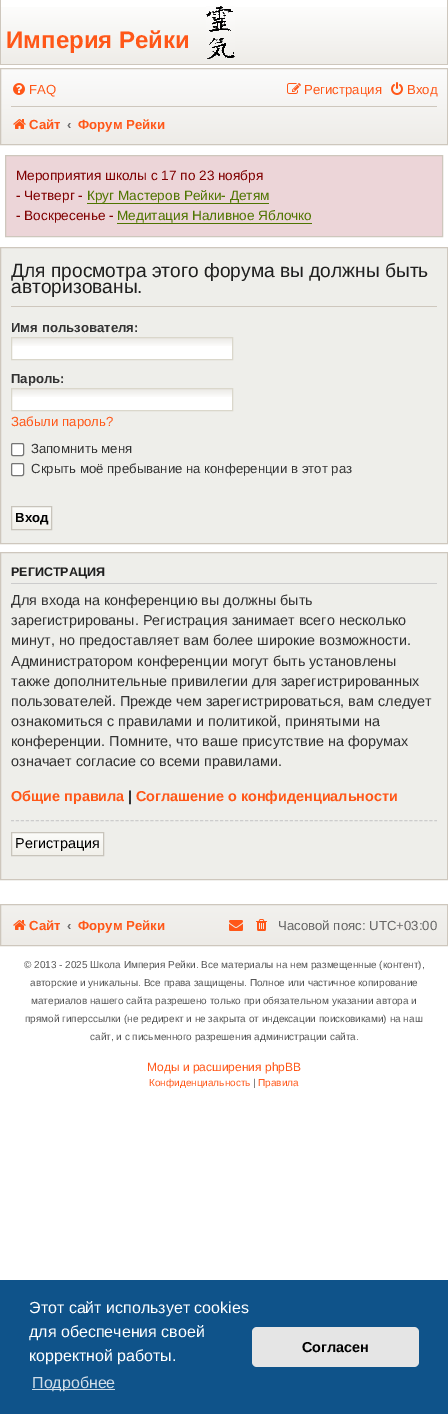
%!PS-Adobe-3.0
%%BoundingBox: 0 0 448 1414
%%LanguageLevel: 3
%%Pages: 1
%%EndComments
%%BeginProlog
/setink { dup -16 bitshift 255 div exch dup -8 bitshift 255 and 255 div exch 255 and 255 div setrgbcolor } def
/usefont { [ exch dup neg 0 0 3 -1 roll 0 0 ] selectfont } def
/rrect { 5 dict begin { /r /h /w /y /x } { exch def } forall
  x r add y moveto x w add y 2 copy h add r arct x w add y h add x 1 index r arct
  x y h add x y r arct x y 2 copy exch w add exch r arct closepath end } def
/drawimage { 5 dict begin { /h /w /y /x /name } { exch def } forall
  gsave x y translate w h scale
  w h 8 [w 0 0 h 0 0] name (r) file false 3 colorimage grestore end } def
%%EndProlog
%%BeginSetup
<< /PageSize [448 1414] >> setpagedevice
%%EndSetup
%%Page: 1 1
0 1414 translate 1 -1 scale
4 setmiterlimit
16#FFFFFF setink
0 0 448 1414 rectfill
gsave 1 7 moveto 447 7 lineto 447 64 lineto 1 64 lineto closepath clip newpath
<< /ShadingType 2 /ColorSpace /DeviceRGB /Coords [224 0 224 64] /Extend [true true] /Function << /FunctionType 2 /Domain [0 1] /C0 [1 1 1] /C1 [0.933 0.925 0.91] /N 1 >> >> shfill grestore
[
    [447 0 1 65 16#CEC7BD]
    [0 64 448 1 16#CEC7BD]
    [0 0 1 65 16#CEC7BD]
] { aload pop setink rectfill } forall
/LiberationSans-Bold 24 usefont
16#FF5718 setink
6 48 moveto (Империя Рейки) show
(img1.raw) 206 6 29 53 drawimage
gsave 1 69 moveto 447 69 lineto 447 144 lineto 1 144 lineto closepath clip newpath
<< /ShadingType 2 /ColorSpace /DeviceRGB /Coords [224 69 224 144] /Extend [true true] /Function << /FunctionType 2 /Domain [0 1] /C0 [0.984 0.984 0.984] /C1 [0.933 0.925 0.91] /N 1 >> >> shfill grestore
16#CEC7BD setink
0.5 68.5 447 76 rectstroke
(img2.raw) 13 83 12 12 drawimage
/LiberationSans-Regular 13.2 usefont
16#FF5718 setink
29 94 moveto (FAQ) show
(img3.raw) 287 83 14 11 drawimage
304 94 moveto (Регистрация) show
(img4.raw) 391 82 12 13 drawimage
407 94 moveto (Вход) show
16#CEC7BD setink
11 106 426 1 rectfill
(img5.raw) 13 119 13 10 drawimage
/LiberationSans-Bold 13.2 usefont
16#FF5718 setink
29 129 moveto (Сайт) show
16#666666 setink
67 129 moveto (‹) show
16#FF5718 setink
78 129 moveto (Форум Рейки) show
16#ECD5D8 setink
5.5 155.5 moveto 442.5 155.5 lineto 442.5 236.5 lineto 5.5 236.5 lineto closepath gsave fill grestore
16#CEC7BD setink
stroke
/LiberationSans-Regular 13.6 usefont
16#800000 setink
16 180 moveto (Мероприятия школы c 17 по 23 ноября) show
16 200 moveto (- Четверг -) show
16#4F7500 setink
87 200 moveto (Круг Мастеров Рейки- Детям) show
87 203 182 1 rectfill
16#800000 setink
16 220 moveto (- Воскресенье -) show
16#4F7500 setink
117 220 moveto (Медитация Наливное Яблочко) show
117 223 195 1 rectfill
16#EEEEEA setink
0.5 247.5 moveto 447.5 247.5 lineto 447.5 543.5 lineto 0.5 543.5 lineto closepath gsave fill grestore
16#CEC7BD setink
stroke
11 306 426 1 rectfill
/LiberationSans-Regular 19.2 usefont
16#1F1F1F setink
11 277 moveto (Для просмотра этого форума вы должны быть) show
11 293 moveto (авторизованы.) show
/LiberationSans-Bold 13.2 usefont
16#333333 setink
11 332 moveto (Имя пользователя:) show
16#FFFFFF setink
12 346 220 13 rectfill
(img6.raw) 12 338 220 8 drawimage
16#DAD7CB setink
11.5 337.5 221 22 rectstroke
16#333333 setink
11 383 moveto (Пароль:) show
16#FFFFFF setink
12 397 220 13 rectfill
(img6.raw) 12 389 220 8 drawimage
16#DAD7CB setink
11.5 388.5 221 22 rectstroke
/LiberationSans-Regular 13.2 usefont
16#FF5718 setink
11 426 moveto (Забыли пароль?) show
16#FFFFFF setink
11.5 443.5 12 12 1.5 rrect gsave fill grestore
16#767676 setink
stroke
16#333333 setink
31 453 moveto (Запомнить меня) show
16#FFFFFF setink
11.5 463.5 12 12 1.5 rrect gsave fill grestore
16#767676 setink
stroke
16#333333 setink
31 473 moveto (Скрыть моё пребывание на конференции в этот раз) show
gsave 12 507 moveto 51 507 lineto 51 529 lineto 12 529 lineto closepath clip newpath
<< /ShadingType 2 /ColorSpace /DeviceRGB /Coords [32 507 32 529] /Extend [true true] /Function << /FunctionType 2 /Domain [0 1] /C0 [0.988 0.988 0.98] /C1 [0.945 0.941 0.918] /N 1 >> >> shfill grestore
16#C8C4BB setink
11.5 506.5 40 23 rectstroke
/LiberationSans-Bold 13.2 usefont
16#000000 setink
15 522 moveto (Вход) show
16#EEEEEA setink
0.5 552.5 moveto 447.5 552.5 lineto 447.5 879.5 lineto 0.5 879.5 lineto closepath gsave fill grestore
16#CEC7BD setink
stroke
16#CCCCCC setink
11 583 426 1 rectfill
/LiberationSans-Bold 12.5 usefont
16#1F1F1F setink
11 576 moveto (РЕГИСТРАЦИЯ) show
/LiberationSans-Regular 14.4 usefont
16#333333 setink
[
    [(Для входа на конференцию вы должны быть) 11 605]
    [(зарегистрированы. Регистрация занимает всего несколько) 11 625]
    [(минут, но предоставляет вам более широкие возможности.) 11 645]
    [(Администратором конференции могут быть установлены) 11 666]
    [(также дополнительные привилегии для зарегистрированных) 11 686]
    [(пользователей. Прежде чем зарегистрироваться, вам следует) 11 706]
    [(ознакомиться с правилами и политикой, принятыми на) 11 726]
    [(конференции. Помните, что ваше присутствие на форумах) 11 746]
    [(означает согласие со всеми правилами.) 11 766]
] { aload pop moveto show } forall
/LiberationSans-Bold 14.4 usefont
16#FF5718 setink
11 801 moveto (Общие правила) show
16#333333 setink
128 801 moveto (|) show
16#FF5718 setink
136 801 moveto (Соглашение о конфиденциальности) show
16#CCCCCC setink
[3 1.98] 0 setdash
11 820.5 moveto 437 820.5 lineto stroke
gsave 12 833 moveto 103 833 lineto 103 855 lineto 12 855 lineto closepath clip newpath
<< /ShadingType 2 /ColorSpace /DeviceRGB /Coords [58 833 58 855] /Extend [true true] /Function << /FunctionType 2 /Domain [0 1] /C0 [0.988 0.988 0.98] /C1 [0.945 0.941 0.918] /N 1 >> >> shfill grestore
16#C8C4BB setink
[] 0 setdash
11.5 832.5 92 23 rectstroke
/LiberationSans-Regular 14.4 usefont
16#000000 setink
15 848 moveto (Регистрация) show
gsave 1 905 moveto 447 905 lineto 447 945 lineto 1 945 lineto closepath clip newpath
<< /ShadingType 2 /ColorSpace /DeviceRGB /Coords [224 905 224 945] /Extend [true true] /Function << /FunctionType 2 /Domain [0 1] /C0 [0.949 0.945 0.933] /C1 [0.929 0.922 0.906] /N 1 >> >> shfill grestore
16#CEC7BD setink
0.5 904.5 447 41 rectstroke
(img7.raw) 13 920 13 10 drawimage
/LiberationSans-Bold 13.2 usefont
16#FF5718 setink
29 930 moveto (Сайт) show
16#666666 setink
67 930 moveto (‹) show
16#FF5718 setink
78 930 moveto (Форум Рейки) show
(img8.raw) 229 920 14 11 drawimage
(img9.raw) 256 919 11 12 drawimage
/LiberationSans-Regular 13.2 usefont
16#666666 setink
278 930 moveto (Часовой пояс: UTC+03:00) show
/LiberationSans-Regular 10 usefont
16#555555 setink
[
    [(© 2013 - 2025 Школа Империя Рейки. Все материалы на нем размещенные \(контент\),) 24 968]
    [(авторские и уникальны. Все права защищены. Полное или частичное копирование) 30 986]
    [(материалов нашего сайта разрешено только при обязательном указании автора и) 31 1004]
    [(прямой гиперссылки \(не редирект и не закрыта от индексации поисковиками\) на наш) 25 1022]
    [(сайт, и с письменного разрешения администрации сайта.) 90 1040]
] { aload pop moveto show } forall
/LiberationSans-Regular 12 usefont
16#FF5718 setink
147 1071 moveto (Моды и расширения phpBB) show
/LiberationSans-Regular 10 usefont
149 1086 moveto (Конфиденциальность) show
16#555555 setink
253 1086 moveto (|) show
16#FF5718 setink
258 1086 moveto (Правила) show
16#0F538A setink
0 1280 448 134 rectfill
/LiberationSans-Regular 16 usefont
16#FFFFFF setink
[
    [(Этот сайт использует cookies) 29 1313]
    [(для обеспечения своей) 29 1337]
    [(корректной работы.) 29 1361]
] { aload pop moveto show } forall
16#CFDDE8 setink
32 1389 83 1 rectfill
32 1388 moveto (Подробнее) show
16#E5E5E5 setink
252 1327 167 40 5 rrect fill
/LiberationSans-Bold 14.4 usefont
16#000000 setink
302 1352 moveto (Согласен) show
showpage
%%EOF
